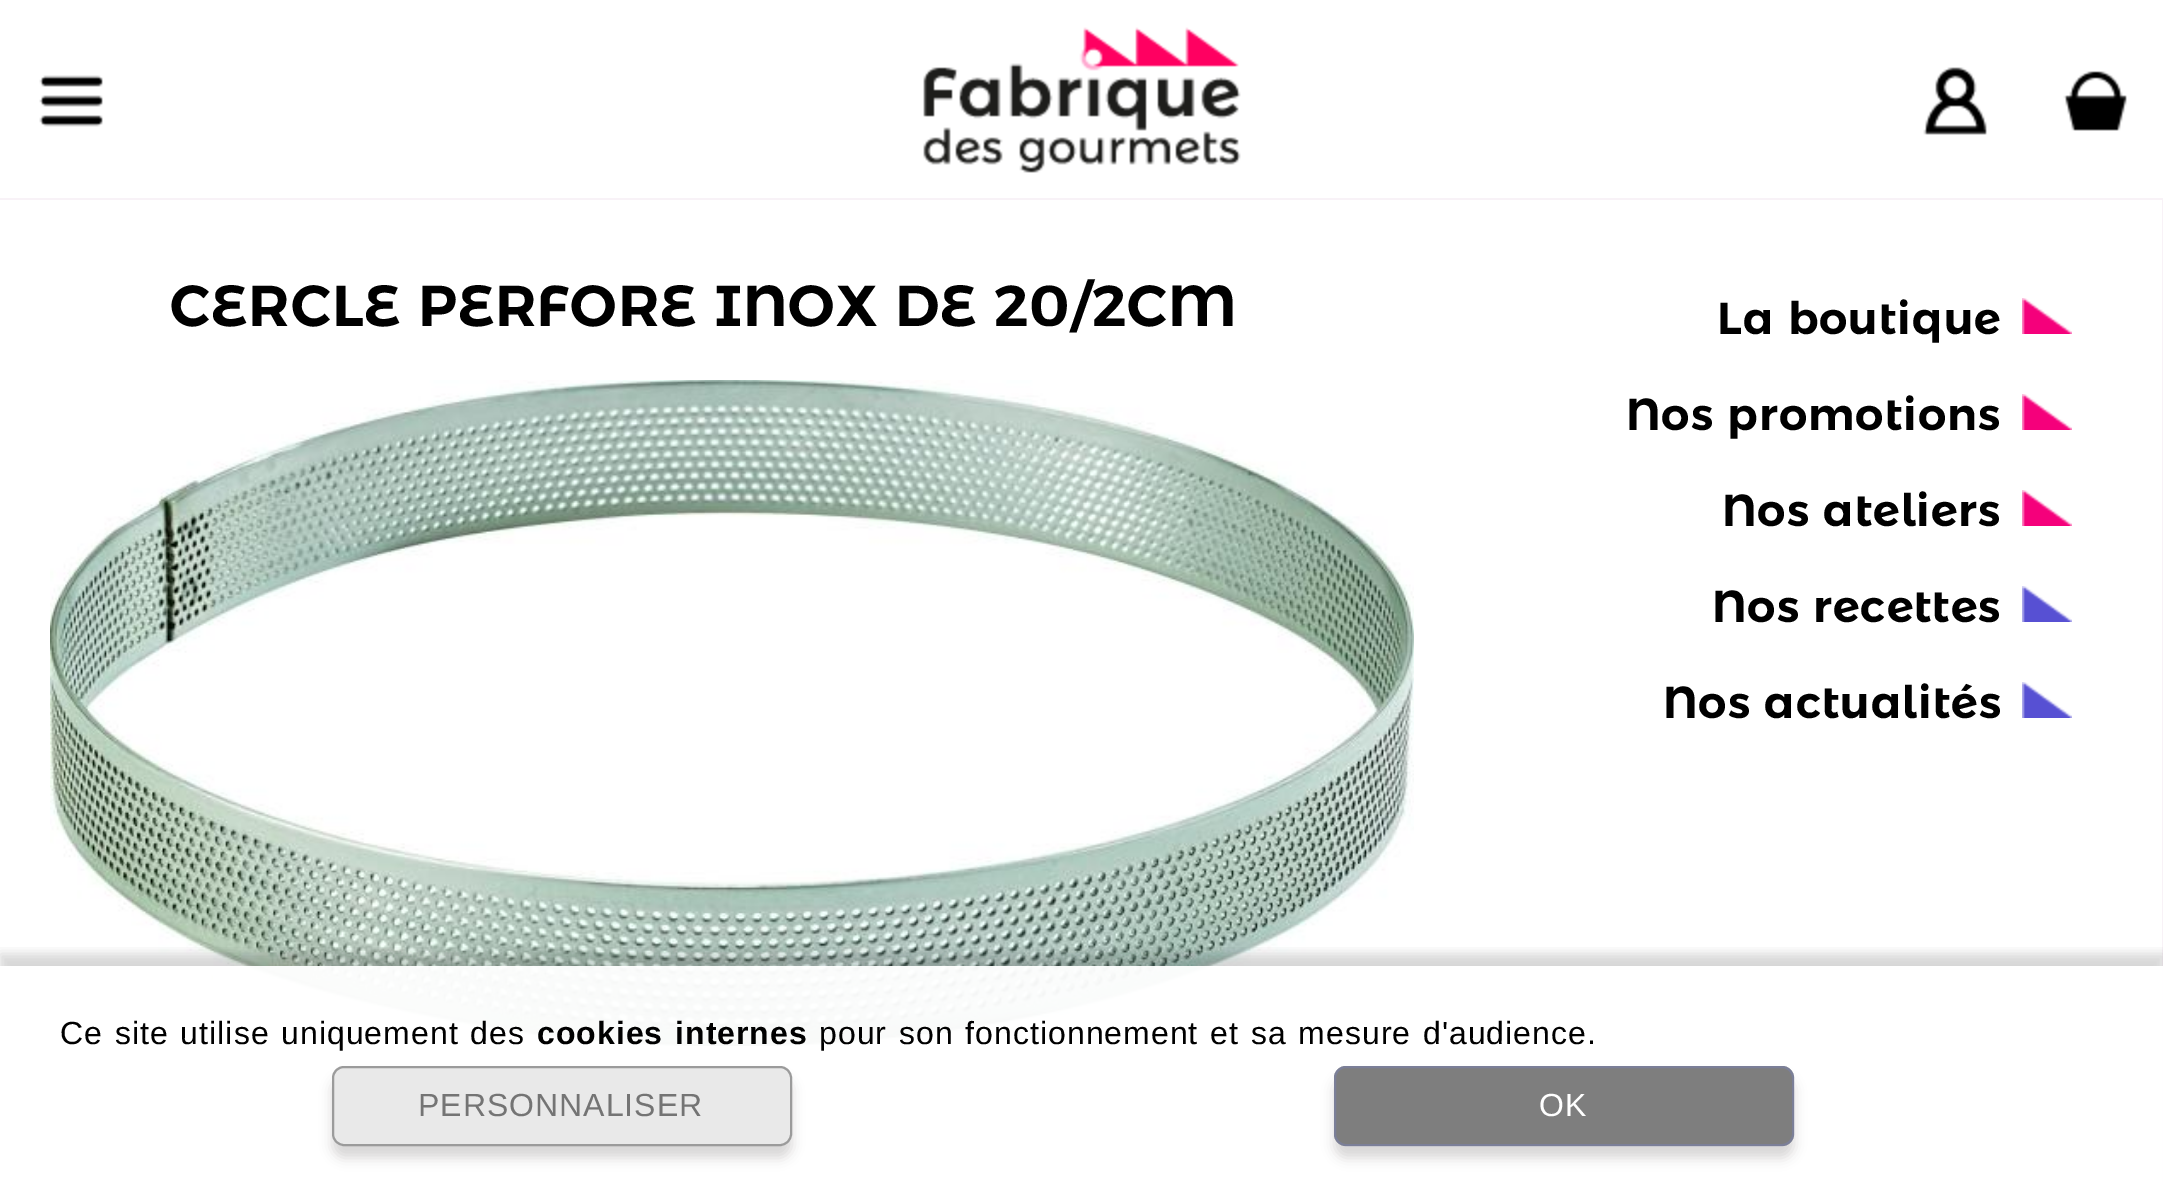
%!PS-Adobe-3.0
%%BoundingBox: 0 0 2163 1185
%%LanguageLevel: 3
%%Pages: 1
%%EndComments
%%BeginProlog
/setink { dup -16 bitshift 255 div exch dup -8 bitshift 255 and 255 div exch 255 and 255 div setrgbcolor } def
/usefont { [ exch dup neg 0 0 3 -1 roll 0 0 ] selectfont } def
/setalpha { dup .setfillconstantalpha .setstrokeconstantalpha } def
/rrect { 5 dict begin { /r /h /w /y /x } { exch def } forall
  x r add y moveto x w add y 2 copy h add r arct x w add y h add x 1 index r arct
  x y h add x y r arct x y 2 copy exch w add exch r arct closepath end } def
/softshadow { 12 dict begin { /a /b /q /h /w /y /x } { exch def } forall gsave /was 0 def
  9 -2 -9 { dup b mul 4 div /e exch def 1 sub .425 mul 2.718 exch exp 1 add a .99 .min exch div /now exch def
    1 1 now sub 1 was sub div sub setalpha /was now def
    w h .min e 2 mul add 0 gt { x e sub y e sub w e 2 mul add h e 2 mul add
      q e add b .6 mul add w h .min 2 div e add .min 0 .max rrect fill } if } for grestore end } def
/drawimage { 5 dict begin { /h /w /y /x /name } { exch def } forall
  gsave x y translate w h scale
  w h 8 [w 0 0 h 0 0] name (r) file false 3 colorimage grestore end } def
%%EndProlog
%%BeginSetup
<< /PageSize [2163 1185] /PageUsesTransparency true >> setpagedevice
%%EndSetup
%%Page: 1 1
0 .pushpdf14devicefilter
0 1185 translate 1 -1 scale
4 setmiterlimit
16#FFFFFF setink
0 0 2163 1185 rectfill
16#F8F2F7 setink
0 198 2163 2 rectfill
(img1.raw) 39 75 64 52 drawimage
(img2.raw) 923 27 318 146 drawimage
(img3.raw) 1923 67 64 68 drawimage
(img4.raw) 2063 71 64 60 drawimage
/MontserratAlternates-SemiBold 57.6 usefont
16#000000 setink
170 326 moveto 2 0 32 1 0 (CERCLE PERFORE INOX DE 20/2CM) awidthshow
(img5.raw) 50 380 1364 666 drawimage
16#F8F2F7 setink
2162 200 1 985 rectfill
/MontserratAlternates-SemiBold 44.75 usefont
16#000000 setink
1717 334 moveto 2 0 32 1 0 (La boutique) awidthshow
(img6.raw) 2022 298 50 36 drawimage
1626 430 moveto 2 0 32 1 0 (Nos promotions) awidthshow
(img6.raw) 2022 394 50 36 drawimage
1722 526 moveto 2 0 32 1 0 (Nos ateliers) awidthshow
(img6.raw) 2022 490 50 36 drawimage
1712 622 moveto 2 0 32 1 0 (Nos recettes) awidthshow
(img7.raw) 2022 586 50 36 drawimage
1663 718 moveto 2 0 32 1 0 (Nos actualités) awidthshow
(img7.raw) 2022 682 50 36 drawimage
gsave
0 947 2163 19 rectclip
0 954 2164 220 0 6 0.16 softshadow
grestore
0.95 setalpha
16#FFFFFF setink
213 966 1950 219 rectfill
/LiberationSans-Regular 32 usefont
1 setalpha
16#000000 setink
60 1044 moveto 2 0 32 1 0 (Ce site utilise uniquement des) awidthshow
/LiberationSans-Bold 32 usefont
537 1044 moveto 2 0 32 1 0 (cookies internes) awidthshow
/LiberationSans-Regular 32 usefont
819 1044 moveto 2 0 32 1 0 (pour son fonctionnement et sa mesure d'audience.) awidthshow
16#140E0E setink
332 1078 460 80 12 6 0.16 softshadow
16#E9E9E9 setink
332 1066 460 80 12 rrect fill
0.6 setalpha
16#676767 setink
2 setlinewidth
333 1067 458 78 11 rrect stroke
1 setalpha
16#747474 setink
418 1116 moveto 1 0 (PERSONNALISER) ashow
16#140E0E setink
1334 1078 460 80 12 6 0.16 softshadow
16#7E7E7E setink
1334 1066 460 80 12 rrect fill
0.66 setalpha
16#7980A6 setink
1335 1067 458 78 11 rrect stroke
1 setalpha
16#FFFFFF setink
1539 1116 moveto 1 0 (OK) ashow
.poppdf14devicefilter showpage
%%EOF
